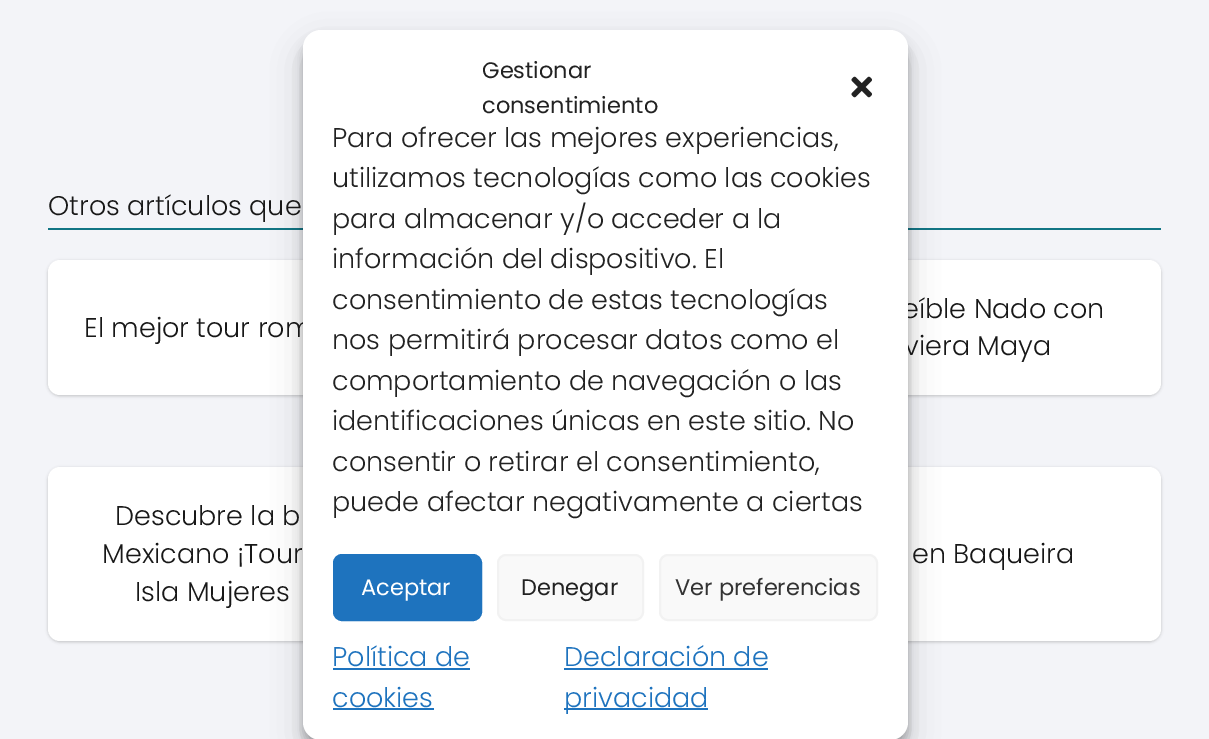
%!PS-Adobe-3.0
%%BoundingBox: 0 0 1209 739
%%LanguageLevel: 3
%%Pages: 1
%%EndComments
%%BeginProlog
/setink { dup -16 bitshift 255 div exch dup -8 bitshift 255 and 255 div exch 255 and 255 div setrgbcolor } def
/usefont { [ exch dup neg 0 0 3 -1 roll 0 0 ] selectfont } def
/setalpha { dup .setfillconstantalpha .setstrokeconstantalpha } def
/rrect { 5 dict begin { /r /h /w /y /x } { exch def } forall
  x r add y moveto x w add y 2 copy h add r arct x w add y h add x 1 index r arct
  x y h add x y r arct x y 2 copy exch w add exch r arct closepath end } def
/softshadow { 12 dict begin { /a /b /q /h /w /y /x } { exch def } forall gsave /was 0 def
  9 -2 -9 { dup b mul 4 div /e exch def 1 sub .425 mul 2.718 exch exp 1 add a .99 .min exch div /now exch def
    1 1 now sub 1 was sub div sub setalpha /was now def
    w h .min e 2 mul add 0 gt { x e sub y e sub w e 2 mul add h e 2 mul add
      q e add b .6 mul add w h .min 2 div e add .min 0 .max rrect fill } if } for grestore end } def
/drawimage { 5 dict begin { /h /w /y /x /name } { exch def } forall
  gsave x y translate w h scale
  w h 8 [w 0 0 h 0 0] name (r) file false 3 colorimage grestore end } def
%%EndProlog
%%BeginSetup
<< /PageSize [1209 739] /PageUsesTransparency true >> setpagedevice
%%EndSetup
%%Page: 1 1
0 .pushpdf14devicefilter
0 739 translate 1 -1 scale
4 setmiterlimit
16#F3F4F8 setink
0 0 1209 739 rectfill
16#117584 setink
48 228 1113 2 rectfill
16#000000 setink
48 261 542 135 12 1.5 0.2 softshadow
16#FFFFFF setink
48 260 542 135 12 rrect fill
16#000000 setink
620 261 541 135 12 1.5 0.2 softshadow
16#FFFFFF setink
620 260 541 135 12 rrect fill
16#000000 setink
48 468 542 174 12 1.5 0.2 softshadow
16#FFFFFF setink
48 467 542 174 12 rrect fill
16#000000 setink
620 468 541 174 12 1.5 0.2 softshadow
16#FFFFFF setink
620 467 541 174 12 rrect fill
16#000000 setink
303 39 605 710 18 4.5 0.23 softshadow
303 45 605 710 18 15 0.19 softshadow
/Poppins-Light 27 usefont
16#181818 setink
[
    [(El mejor tour rom) 84 337]
    [(eíble Nado con) 902 318]
    [(viera Maya) 904 355]
] { aload pop moveto show } forall
16#FFFFFF setink
303 30 605 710 18 rrect fill
/Poppins-Regular 22.5 usefont
16#222222 setink
482 78 moveto (Gestionar) show
482 113 moveto (consentimiento) show
(img1.raw) 851 76 21 22 drawimage
/Poppins-Light 27 usefont
[
    [(Para ofrecer las mejores experiencias,) 332 147]
    [(utilizamos tecnologías como las cookies) 332 187]
    [(para almacenar y/o acceder a la) 332 228]
    [(información del dispositivo. El) 332 268]
    [(consentimiento de estas tecnologías) 332 309]
    [(nos permitirá procesar datos como el) 332 349]
    [(comportamiento de navegación o las) 332 390]
    [(identificaciones únicas en este sitio. No) 332 430]
    [(consentir o retirar el consentimiento,) 332 471]
    [(puede afectar negativamente a ciertas) 332 511]
] { aload pop moveto show } forall
16#1E73BE setink
334 555 147 65 8 rrect gsave fill grestore
2 setlinewidth
stroke
/Poppins-Regular 22.5 usefont
16#FFFFFF setink
361 595 moveto (Aceptar) show
16#F9F9F9 setink
498 555 145 65 8 rrect gsave fill grestore
16#F2F2F2 setink
stroke
16#222222 setink
521 595 moveto (Denegar) show
16#F9F9F9 setink
660 555 217 65 8 rrect gsave fill grestore
16#F2F2F2 setink
stroke
16#333333 setink
675 595 moveto (Ver preferencias) show
/Poppins-Light 27 usefont
16#1E73BE setink
332 666 moveto (Política de) show
333 668 137 2 rectfill
332 707 moveto (cookies) show
333 708 101 2 rectfill
564 666 moveto (Declaración de) show
564 668 204 2 rectfill
564 708 144 2 rectfill
564 707 moveto (privacidad) show
16#181818 setink
[
    [(Otros artículos que) 48 215]
    [(Descubre la b) 115 525]
    [(Mexicano ¡Tour) 102 563]
    [(Isla Mujeres) 135 601]
    [(en Baqueira) 912 563]
] { aload pop moveto show } forall
.poppdf14devicefilter showpage
%%EOF
